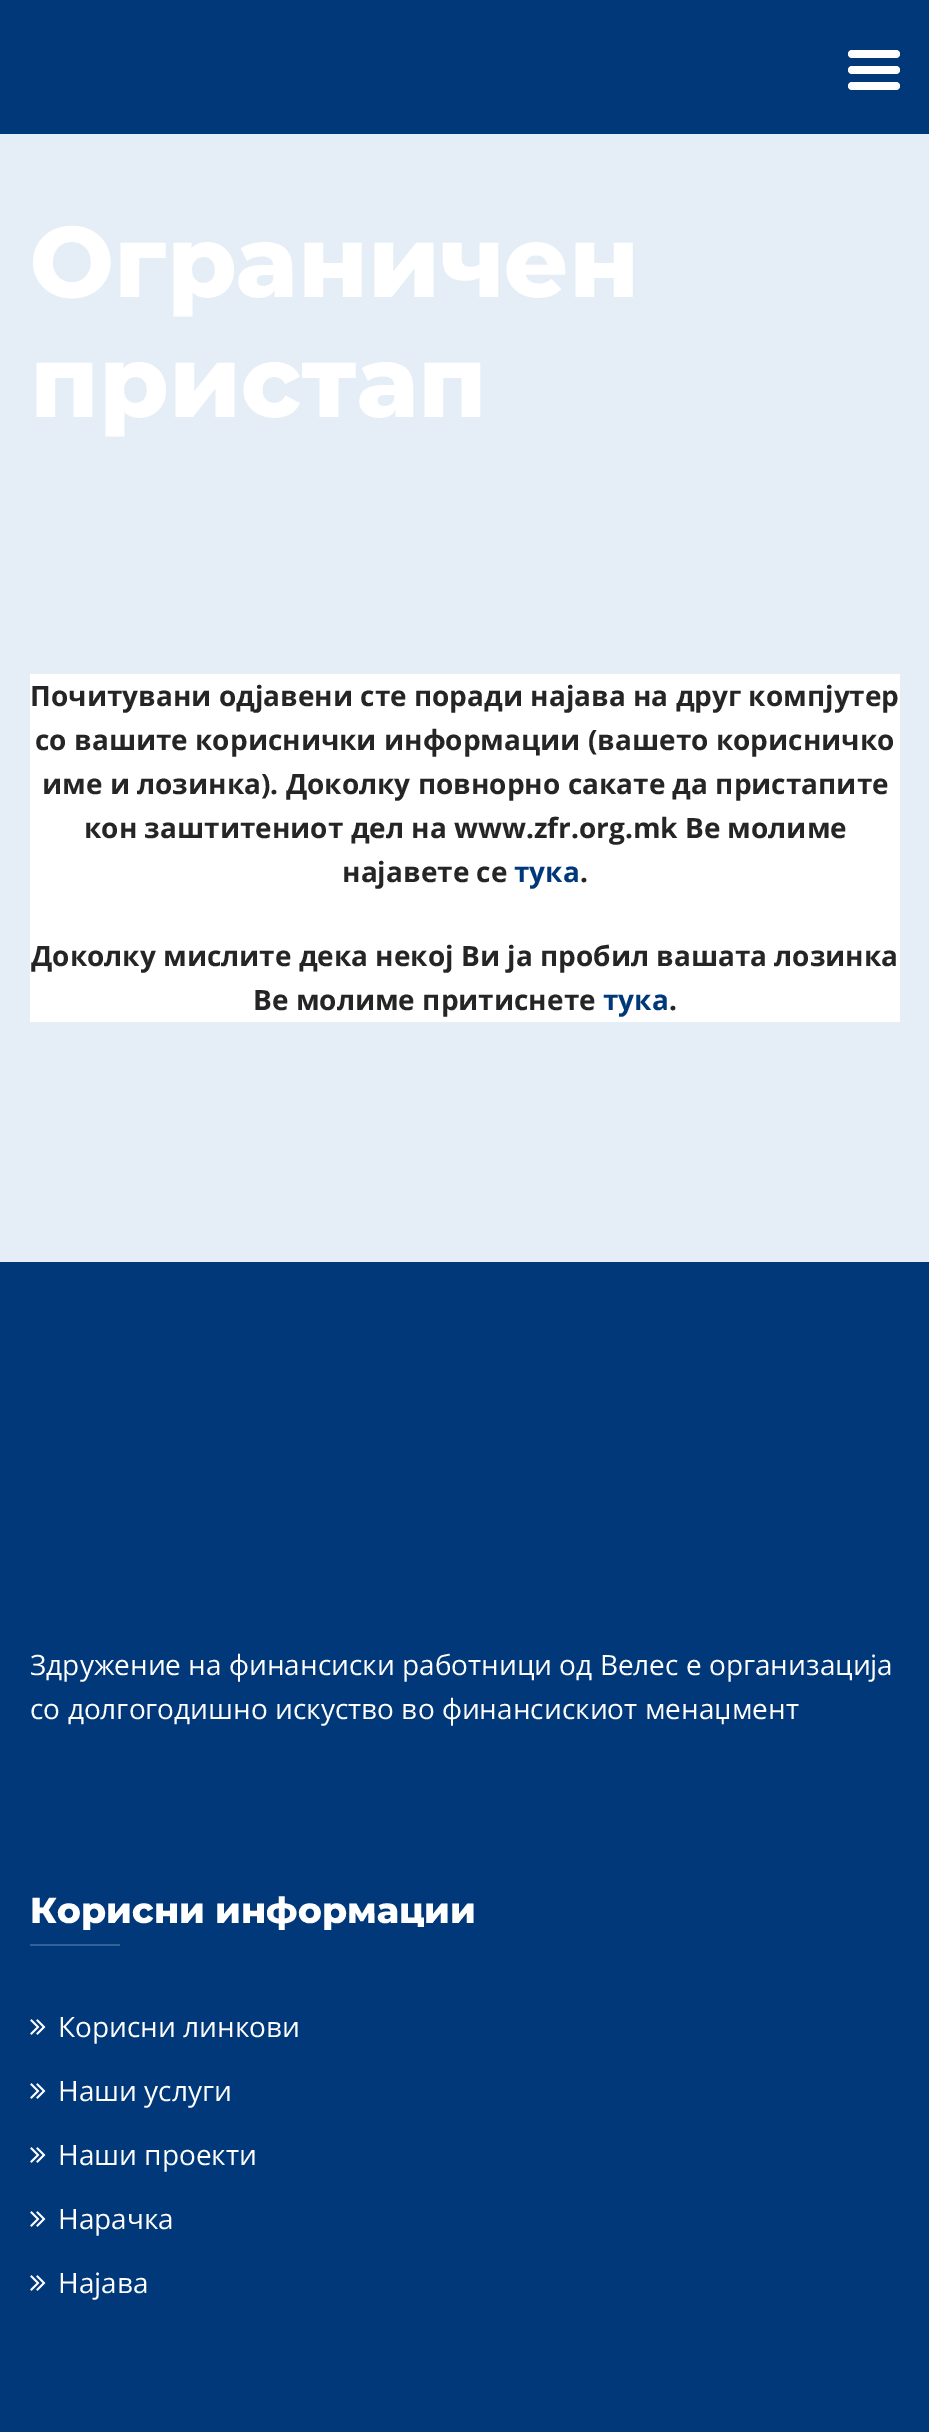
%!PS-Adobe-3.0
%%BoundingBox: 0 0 929 2432
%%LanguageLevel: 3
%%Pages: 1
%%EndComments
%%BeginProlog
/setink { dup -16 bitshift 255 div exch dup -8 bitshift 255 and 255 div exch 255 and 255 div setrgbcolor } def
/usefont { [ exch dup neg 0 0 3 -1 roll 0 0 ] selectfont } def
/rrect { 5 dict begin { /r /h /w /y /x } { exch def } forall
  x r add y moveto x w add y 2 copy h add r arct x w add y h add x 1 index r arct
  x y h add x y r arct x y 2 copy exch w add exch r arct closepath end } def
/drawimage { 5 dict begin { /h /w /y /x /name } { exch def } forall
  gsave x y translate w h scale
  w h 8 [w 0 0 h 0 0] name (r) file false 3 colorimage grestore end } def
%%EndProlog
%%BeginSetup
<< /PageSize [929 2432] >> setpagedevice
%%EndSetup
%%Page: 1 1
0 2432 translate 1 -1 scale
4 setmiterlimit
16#00387A setink
0 0 929 2432 rectfill
16#FFFFFF setink
848 66 52 8 4 rrect fill
848 50 52 8 4 rrect fill
848 82 52 8 4 rrect fill
16#E5EEF6 setink
0 134 929 1128 rectfill
/Montserrat-ExtraBold 100 usefont
16#FFFFFF setink
30 297 moveto (Ограничен) show
30 417 moveto (пристап) show
30 674 870 348 rectfill
/OpenSans-Bold 28 usefont
16#252525 setink
[
    [(Почитувани одјавени сте поради најава на друг компјутер) 30 706]
    [(со вашите кориснички информации \(вашето корисничко) 35 750]
    [(име и лозинка\). Доколку повнорно сакате да пристапите) 42 794]
    [(кон заштитениот дел на www.zfr.org.mk Ве молиме) 84 838]
    [(најавете се) 342 882]
] { aload pop moveto show } forall
16#00387A setink
514 882 moveto (тука) show
16#252525 setink
[
    [(.) 580 882]
    [(Доколку мислите дека некој Ви ја пробил вашата лозинка) 31 966]
    [(Ве молиме притиснете) 253 1010]
] { aload pop moveto show } forall
16#00387A setink
603 1010 moveto (тука) show
16#252525 setink
669 1010 moveto (.) show
/OpenSans-Regular 28 usefont
16#FFFFFF setink
30 1675 moveto (Здружение на финансиски работници од Велес е организација) show
30 1719 moveto (со долгогодишно искуство во финансискиот менаџмент) show
/Montserrat-ExtraBold 36 usefont
30 1923 moveto (Корисни информации) show
16#336095 setink
30 1944 90 2 rectfill
(img1.raw) 30 2019 16 16 drawimage
/OpenSans-Regular 28 usefont
16#FFFFFF setink
58 2037 moveto (Корисни линкови) show
(img1.raw) 30 2083 16 16 drawimage
58 2101 moveto (Наши услуги) show
(img1.raw) 30 2147 16 16 drawimage
58 2165 moveto (Наши проекти) show
(img1.raw) 30 2211 16 16 drawimage
58 2229 moveto (Нарачка) show
(img1.raw) 30 2275 16 16 drawimage
58 2293 moveto (Најава) show
showpage
%%EOF
